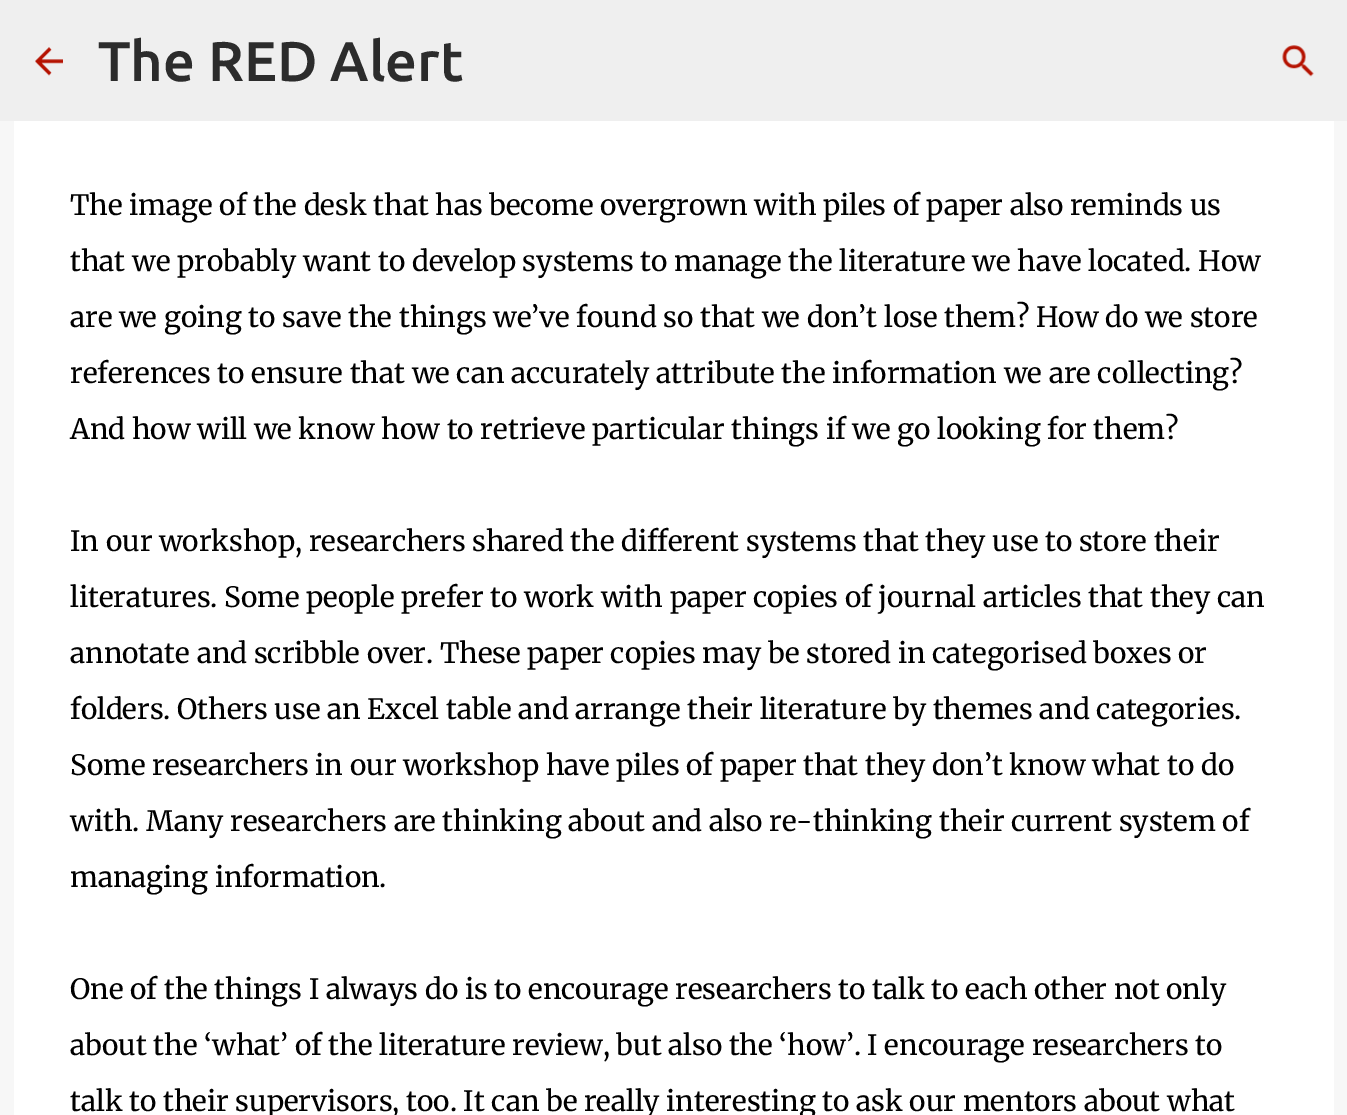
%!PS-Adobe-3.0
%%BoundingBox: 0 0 1347 1115
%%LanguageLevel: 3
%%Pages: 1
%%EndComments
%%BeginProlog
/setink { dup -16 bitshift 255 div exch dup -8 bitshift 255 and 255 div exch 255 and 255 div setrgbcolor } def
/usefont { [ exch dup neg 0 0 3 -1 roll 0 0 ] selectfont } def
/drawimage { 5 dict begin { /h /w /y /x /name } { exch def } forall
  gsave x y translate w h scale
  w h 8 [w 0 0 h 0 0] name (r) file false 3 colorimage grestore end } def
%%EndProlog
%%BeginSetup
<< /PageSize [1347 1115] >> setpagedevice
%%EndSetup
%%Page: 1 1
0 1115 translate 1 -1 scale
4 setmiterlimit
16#F7F7F7 setink
0 0 1347 1115 rectfill
16#EFEFEF setink
0 0 1347 121 rectfill
(img1.raw) 35 47 28 29 drawimage
/Ubuntu-Medium 56 usefont
16#2C2C2C setink
98 81 moveto (The RED Alert) show
(img2.raw) 1282 45 32 32 drawimage
16#FFFFFF setink
14 121 1320 994 rectfill
/Merriweather-Light 28 usefont
16#000000 setink
[
    [(The image of the desk that has become overgrown with piles of paper also reminds us) 70 215]
    [(that we probably want to develop systems to manage the literature we have located. How) 70 271]
    [(are we going to save the things we’ve found so that we don’t lose them? How do we store) 70 327]
    [(references to ensure that we can accurately attribute the information we are collecting?) 70 383]
    [(And how will we know how to retrieve particular things if we go looking for them?) 70 439]
    [(In our workshop, researchers shared the different systems that they use to store their) 70 551]
    [(literatures. Some people prefer to work with paper copies of journal articles that they can) 70 607]
    [(annotate and scribble over. These paper copies may be stored in categorised boxes or) 70 663]
    [(folders. Others use an Excel table and arrange their literature by themes and categories.) 70 719]
    [(Some researchers in our workshop have piles of paper that they don’t know what to do) 70 775]
    [(with. Many researchers are thinking about and also re-thinking their current system of) 70 831]
    [(managing information.) 70 887]
    [(One of the things I always do is to encourage researchers to talk to each other not only) 70 999]
    [(about the ‘what’ of the literature review, but also the ‘how’. I encourage researchers to) 70 1055]
    [(talk to their supervisors, too. It can be really interesting to ask our mentors about what) 70 1111]
] { aload pop moveto show } forall
showpage
%%EOF
